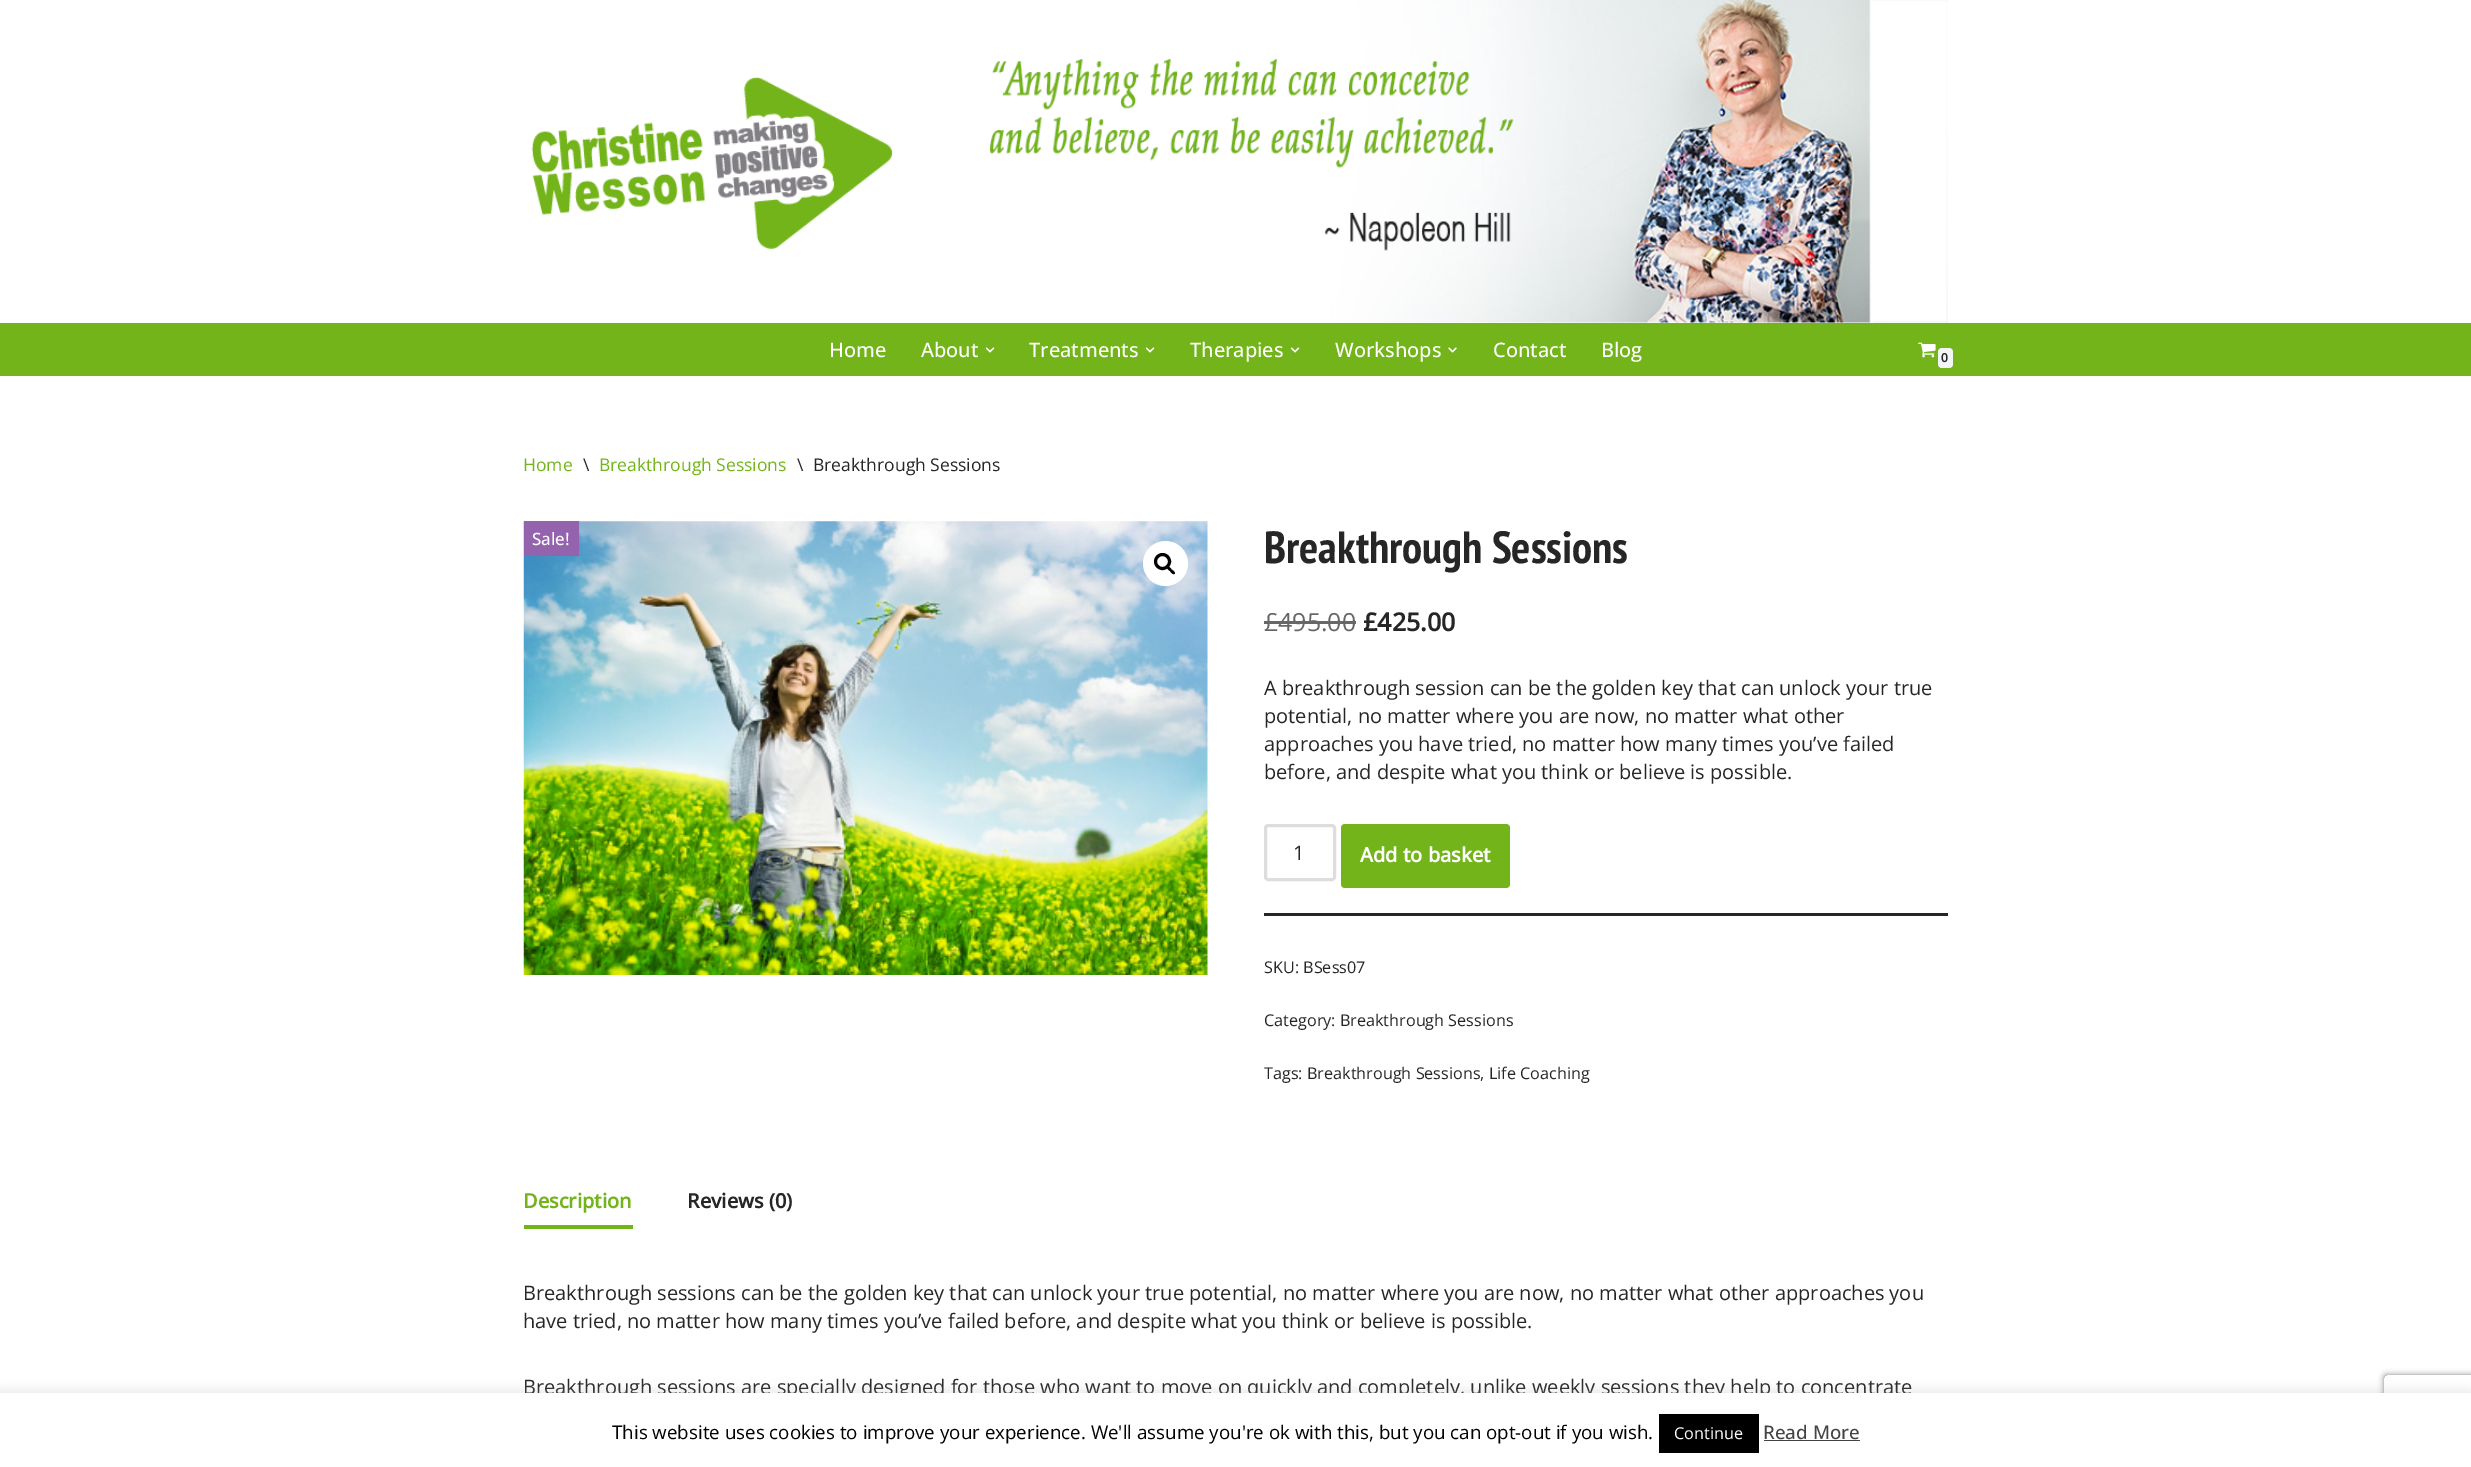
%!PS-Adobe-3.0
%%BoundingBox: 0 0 2471 1467
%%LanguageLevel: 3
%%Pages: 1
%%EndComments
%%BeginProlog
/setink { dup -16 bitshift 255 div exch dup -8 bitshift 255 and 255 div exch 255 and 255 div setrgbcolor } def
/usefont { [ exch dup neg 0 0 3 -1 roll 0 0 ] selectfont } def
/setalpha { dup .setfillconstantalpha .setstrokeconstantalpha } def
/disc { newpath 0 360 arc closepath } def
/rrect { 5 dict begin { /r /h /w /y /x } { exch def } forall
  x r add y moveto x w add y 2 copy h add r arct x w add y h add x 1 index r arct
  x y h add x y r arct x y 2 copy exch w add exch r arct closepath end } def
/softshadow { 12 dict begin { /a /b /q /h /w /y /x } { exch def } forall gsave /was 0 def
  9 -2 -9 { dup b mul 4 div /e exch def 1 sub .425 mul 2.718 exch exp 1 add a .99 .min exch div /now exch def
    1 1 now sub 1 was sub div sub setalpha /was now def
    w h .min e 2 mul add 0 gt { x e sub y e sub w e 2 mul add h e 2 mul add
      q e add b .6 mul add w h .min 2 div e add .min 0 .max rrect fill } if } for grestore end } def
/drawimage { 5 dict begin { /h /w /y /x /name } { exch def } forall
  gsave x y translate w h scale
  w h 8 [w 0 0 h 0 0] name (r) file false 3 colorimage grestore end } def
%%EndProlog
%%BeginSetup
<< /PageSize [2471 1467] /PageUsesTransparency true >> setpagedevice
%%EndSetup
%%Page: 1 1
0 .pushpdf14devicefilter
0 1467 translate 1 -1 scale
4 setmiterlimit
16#FFFFFF setink
0 0 2471 1467 rectfill
(img1.raw) 531 77 362 173 drawimage
(img2.raw) 990 0 958 323 drawimage
16#72B419 setink
0 323 2471 53 rectfill
/OpenSans-Medium 20 usefont
16#FFFFFF setink
829 357 moveto (Home) show
921 357 moveto (About) show
(img3.raw) 985 347 10 6 drawimage
1029 357 moveto (Treatments) show
(img3.raw) 1145 347 10 6 drawimage
1190 357 moveto (Therapies) show
(img3.raw) 1290 347 10 6 drawimage
1335 357 moveto (Workshops) show
(img4.raw) 1448 347 9 6 drawimage
1493 357 moveto (Contact) show
1601 357 moveto (Blog) show
(img5.raw) 1918 342 18 16 drawimage
16#F4F5F7 setink
1938 348 15 20 4 rrect fill
/OpenSans-Bold 12 usefont
16#272626 setink
1941 362 moveto (0) show
/OpenSans-Regular 17.5 usefont
16#72B419 setink
523 471 moveto (Home) show
16#272626 setink
583 471 moveto (\\) show
16#72B419 setink
599 471 moveto (Breakthrough Sessions) show
16#272626 setink
797 471 moveto (\\) show
813 471 moveto (Breakthrough Sessions) show
(img6.raw) 523 521 685 454 drawimage
16#9463AE setink
524 521 55 35 rectfill
/OpenSans-Medium 17 usefont
16#FFFFFF setink
532 545 moveto (Sale!) show
1165.5 563.5 22.5 disc fill
16#000000 setink
3 setlinewidth
1162.5 561.5 7 disc stroke
1167.5 567 moveto 1168.5 565.5 1171 568.5 1171.5 569.5 curveto 1172.5 570 1176 572.5 1174.5 574 curveto 1173 575 1170.5 572 1170 571 curveto 1169 570.5 1166 568 1167.5 567 curveto closepath fill
/PTSansNarrow-Bold 45 usefont
16#272626 setink
1264 563 moveto (Breakthrough Sessions) show
/OpenSans-Regular 25 usefont
16#686767 setink
1264 631 moveto (£) show
1264 621 15 3 rectfill
1278 631 moveto (495.00) show
1279 621 77 3 rectfill
/OpenSans-Bold 25 usefont
16#272626 setink
1363 631 moveto (£425.00) show
/OpenSans-Regular 20 usefont
[
    [(A breakthrough session can be the golden key that can unlock your true) 1264 695]
    [(potential, no matter where you are now, no matter what other) 1264 723]
    [(approaches you have tried, no matter how many times you’ve failed) 1264 751]
    [(before, and despite what you think or believe is possible.) 1264 779]
] { aload pop moveto show } forall
1264 913 684 3 rectfill
16#DDDDDD setink
1265.5 825.5 69 54 2.5 rrect stroke
16#272626 setink
1293 860 moveto (1) show
16#72B419 setink
1341 824 169 64 4 rrect fill
/OpenSans-Bold 20 usefont
16#FFFFFF setink
1360 862 moveto (Add to basket) show
/OpenSans-Regular 16.2 usefont
16#272626 setink
[
    [(SKU: BSess07) 1264 973]
    [(Category: Breakthrough Sessions) 1264 1026]
    [(Tags: Breakthrough Sessions, Life Coaching) 1264 1079]
] { aload pop moveto show } forall
16#72B419 setink
524 1225 109 4 rectfill
/OpenSans-Bold 20 usefont
523 1208 moveto (Description) show
16#272626 setink
687 1208 moveto (Reviews \(0\)) show
/OpenSans-Regular 20 usefont
[
    [(Breakthrough sessions can be the golden key that can unlock your true potential, no matter where you are now, no matter what other approaches you) 523 1300]
    [(have tried, no matter how many times you’ve failed before, and despite what you think or believe is possible.) 523 1328]
    [(Breakthrough sessions are specially designed for those who want to move on quickly and completely, unlike weekly sessions they help to concentrate) 523 1394]
] { aload pop moveto show } forall
16#ACABAB setink
0 1391 2471 75 0 6 0.3 softshadow
gsave
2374 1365 moveto 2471 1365 lineto 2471 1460 lineto 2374 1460 lineto closepath 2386.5 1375 moveto 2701.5 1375 lineto 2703 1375 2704 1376 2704 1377.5 curveto 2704 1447.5 lineto 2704 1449 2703 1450 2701.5 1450 curveto 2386.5 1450 lineto 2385 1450 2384 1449 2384 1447.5 curveto 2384 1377.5 lineto 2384 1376 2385 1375 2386.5 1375 curveto closepath eoclip newpath
16#808080 setink
2384 1375 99 75 2.5 3 1 softshadow
grestore
16#FFFFFF setink
0 1393 2471 74 rectfill
/OpenSans-Regular 18.75 usefont
16#000000 setink
612 1439 moveto (This website uses cookies to improve your experience. We'll assume you're ok with this, but you can opt-out if you wish.) show
1659 1414 100 39 rectfill
/OpenSans-Regular 16.25 usefont
16#FFFFFF setink
1674 1439 moveto (Continue) show
/OpenSans-Medium 18.75 usefont
16#444444 setink
1763 1439 moveto (Read More) show
1764 1440 96 1 rectfill
.poppdf14devicefilter showpage
%%EOF
